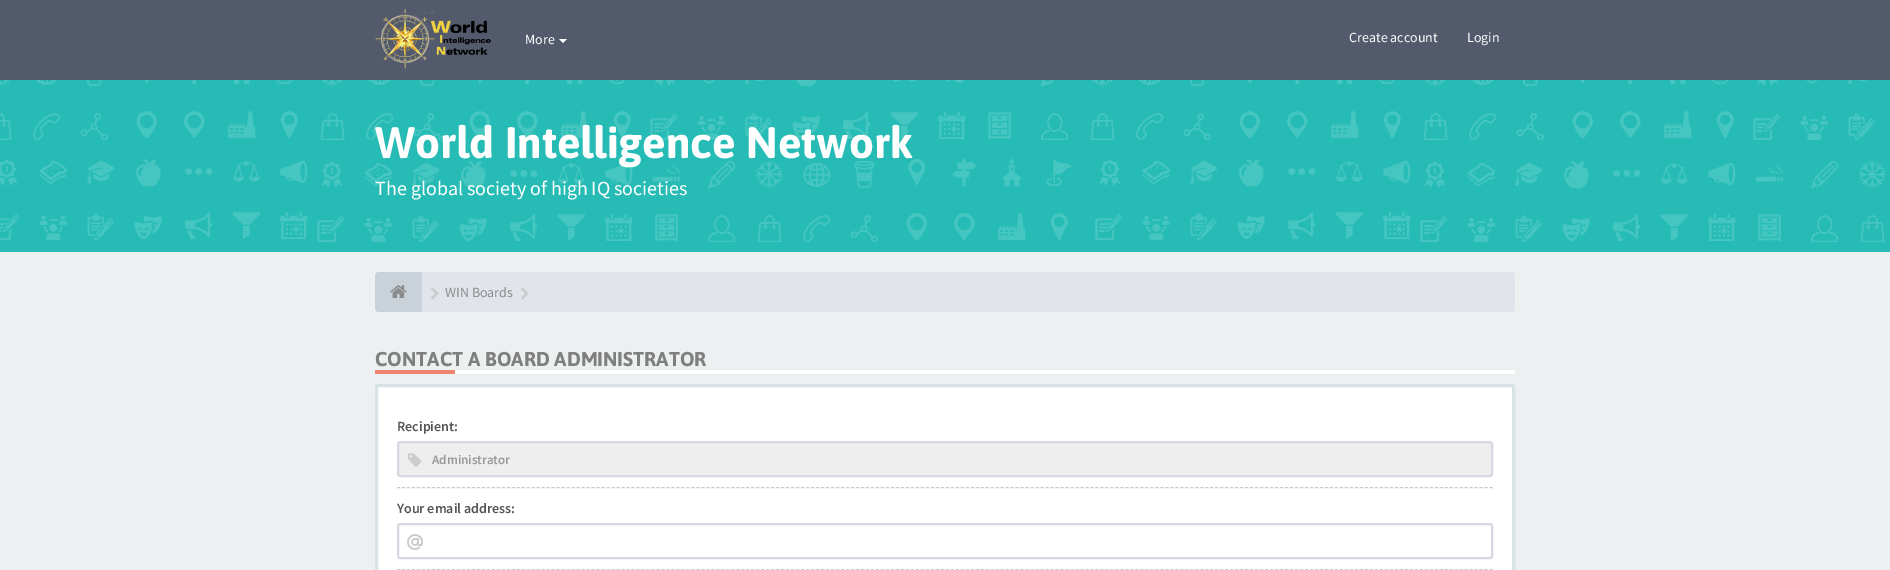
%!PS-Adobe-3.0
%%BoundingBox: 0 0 1890 570
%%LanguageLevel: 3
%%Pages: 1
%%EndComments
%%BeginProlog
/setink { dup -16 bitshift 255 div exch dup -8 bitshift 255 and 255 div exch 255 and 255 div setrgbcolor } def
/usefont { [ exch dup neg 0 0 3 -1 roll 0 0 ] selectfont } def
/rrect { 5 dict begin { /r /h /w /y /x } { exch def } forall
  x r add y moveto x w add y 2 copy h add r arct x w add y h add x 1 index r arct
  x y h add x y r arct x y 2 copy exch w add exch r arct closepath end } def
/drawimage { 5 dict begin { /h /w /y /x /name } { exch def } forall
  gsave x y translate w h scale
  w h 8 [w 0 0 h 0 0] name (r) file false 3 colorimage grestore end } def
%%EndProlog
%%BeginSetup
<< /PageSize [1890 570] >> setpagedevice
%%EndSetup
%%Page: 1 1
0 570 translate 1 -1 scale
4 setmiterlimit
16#ECF0F1 setink
0 0 1890 570 rectfill
16#535A6C setink
0 0 1890 80 rectfill
(img1.raw) 375 9 116 60 drawimage
/SourceSansPro-Regular 14 usefont
16#FFFFFF setink
525 44 moveto (More) show
559 39 moveto 567 39 lineto 563 43 lineto closepath fill
1349 42 moveto (Create account) show
1467 42 moveto (Login) show
16#26BCB5 setink
0 80 1890 172 rectfill
(img2.raw) 0 80 1886 162 drawimage
/Asap-Bold 44 usefont
16#FFFFFF setink
375 158 moveto (World Intelligence Network) show
/SourceSansPro-Regular 20 usefont
375 195 moveto (The global society of high IQ societies) show
16#E1E5EB setink
375 272 1140 40 4 rrect fill
16#C8D2D8 setink
379 272 moveto 422 272 lineto 422 312 lineto 379 312 lineto 377 312 375 310 375 308 curveto 375 276 lineto 375 274 377 272 379 272 curveto closepath fill
(img3.raw) 390 285 17 13 drawimage
(img4.raw) 431 287 8 13 drawimage
/SourceSansPro-Regular 14 usefont
16#8C8C8C setink
445 297 moveto (WIN Boards) show
(img4.raw) 521 287 8 13 drawimage
16#FFFFFF setink
455 370 1060 4 rectfill
/Asap-Bold 20 usefont
16#7F7F7F setink
375 366 moveto (CONTACT A BOARD ADMINISTRATOR) show
16#EE836E setink
375 370 80 4 rectfill
16#FFFFFF setink
376.5 385.5 1137 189 1.5 rrect gsave fill grestore
16#D8E3E6 setink
3 setlinewidth
stroke
16#C9C9C9 setink
1 setlinewidth
[3 1.99] 0 setdash
397 487.5 moveto 1493 487.5 lineto stroke
/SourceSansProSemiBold-SemiBold 14 usefont
16#555555 setink
397 431 moveto (Recipient:) show
16#EEEEEE setink
398 442 1094 34 2 rrect gsave fill grestore
16#D6D9E0 setink
2 setlinewidth
[] 0 setdash
stroke
(img5.raw) 408 453 14 14 drawimage
/SourceSansProSemiBold-SemiBold 13 usefont
16#999999 setink
432 464 moveto (Administrator) show
16#C9C9C9 setink
1 setlinewidth
[3 1.99] 0 setdash
397 569.5 moveto 1493 569.5 lineto stroke
/SourceSansProSemiBold-SemiBold 14 usefont
16#555555 setink
397 513 moveto (Your email address:) show
16#D6D9E0 setink
2 setlinewidth
[] 0 setdash
398 524 1094 34 2 rrect stroke
(img6.raw) 407 534 16 16 drawimage
showpage
%%EOF
